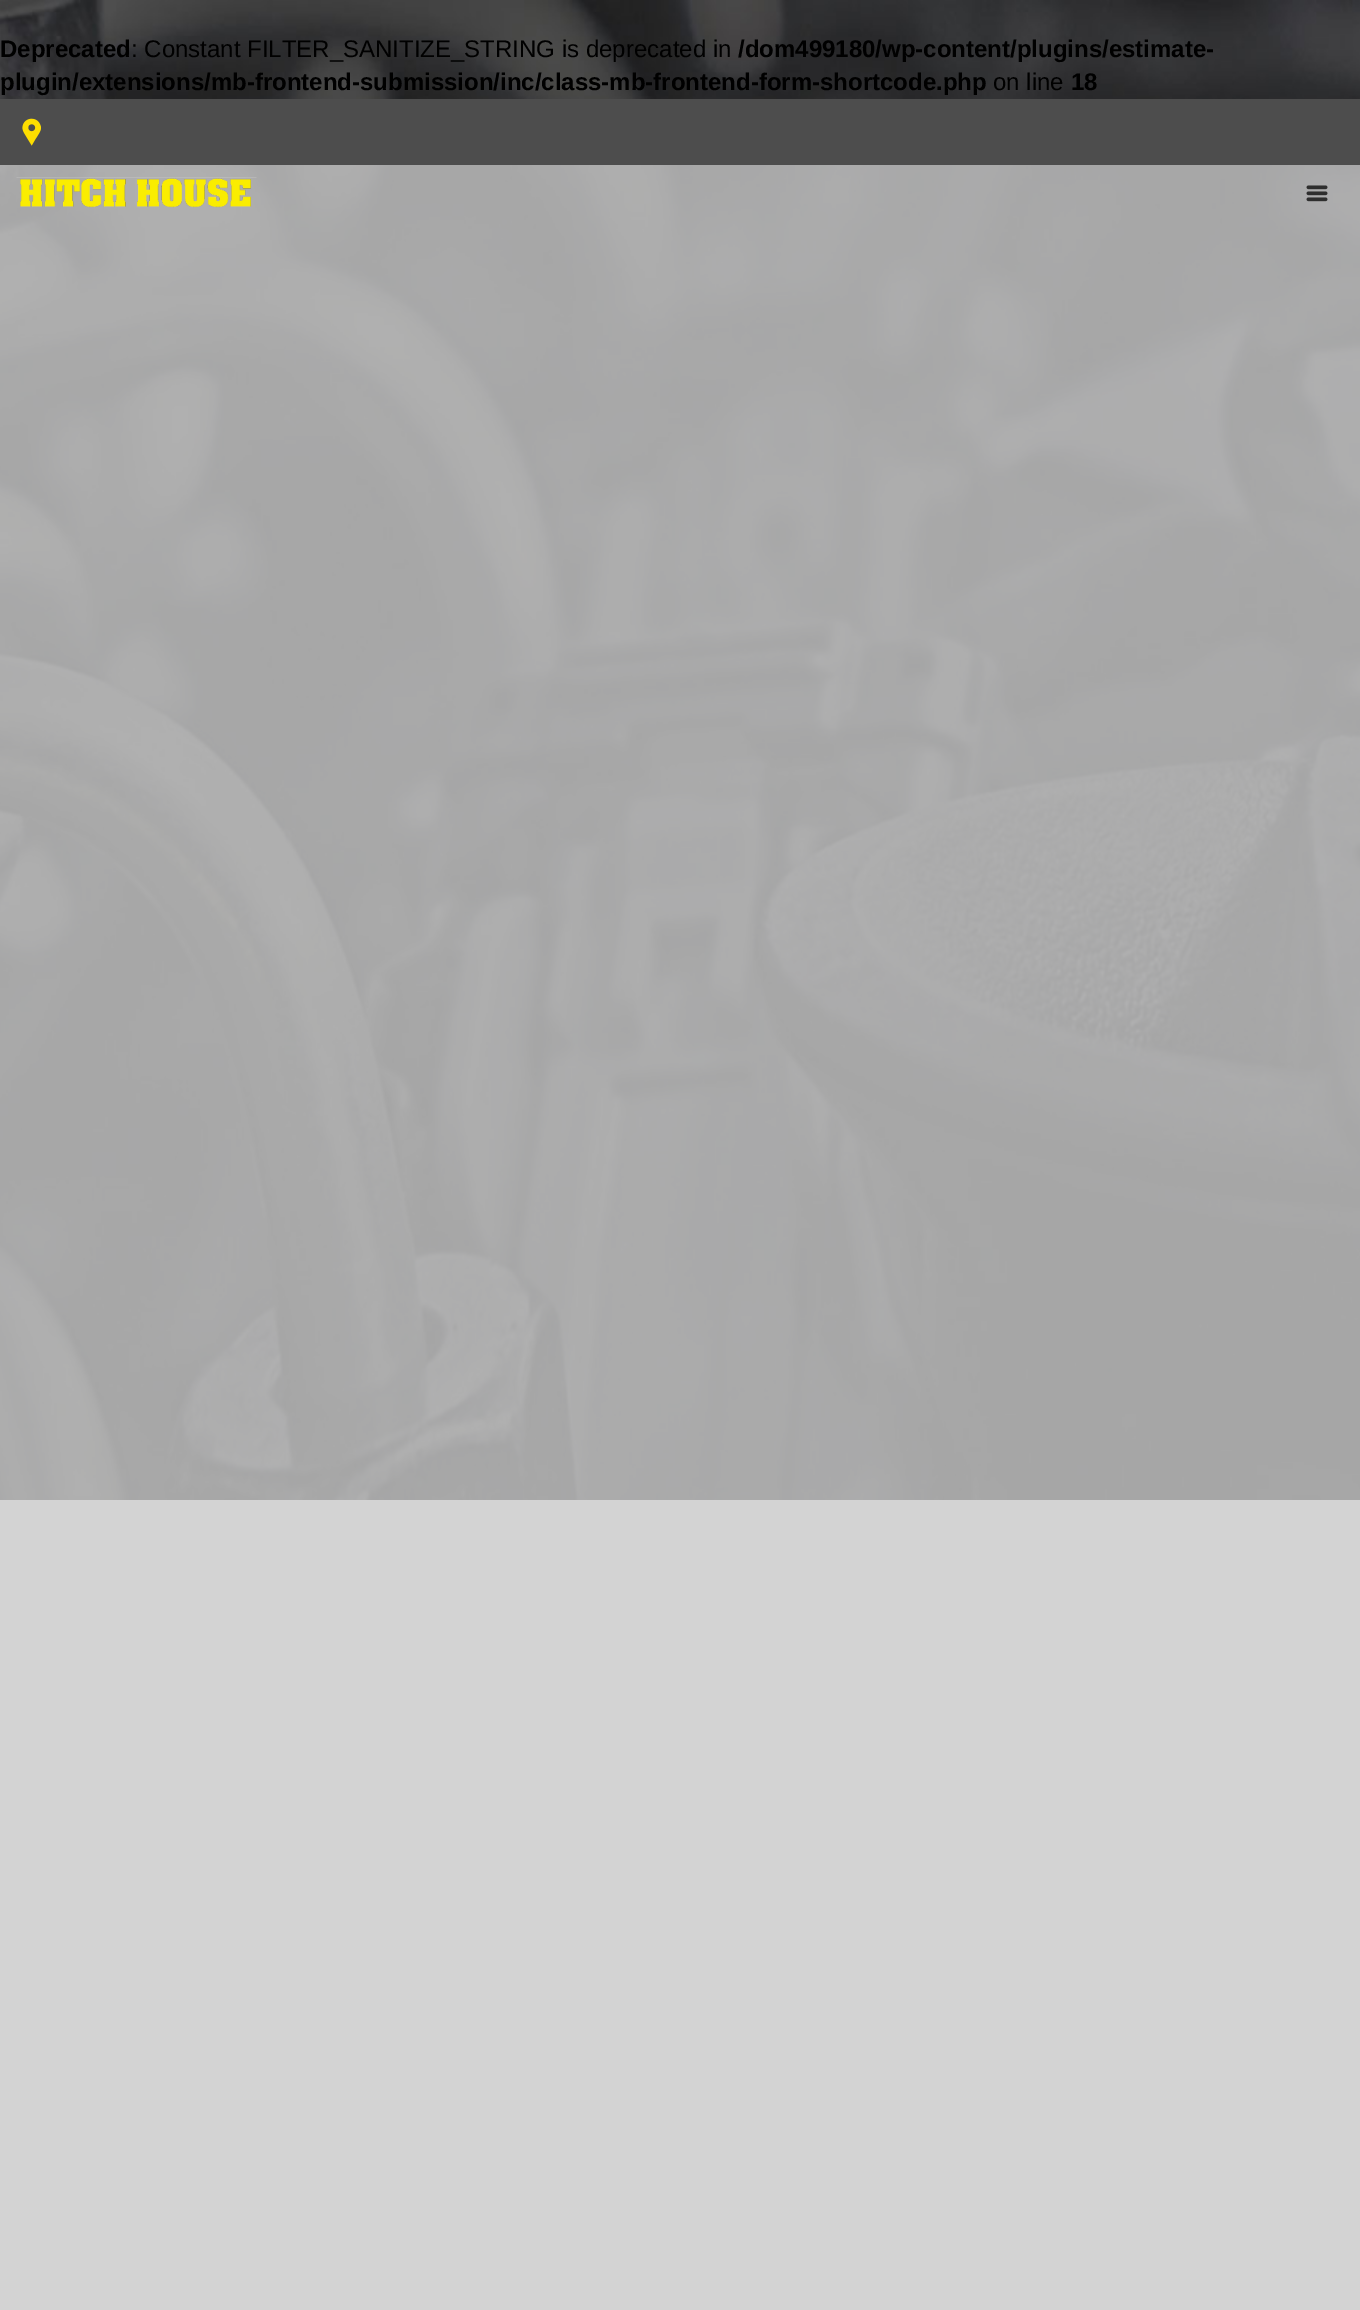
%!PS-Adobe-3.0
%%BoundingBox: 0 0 1360 2310
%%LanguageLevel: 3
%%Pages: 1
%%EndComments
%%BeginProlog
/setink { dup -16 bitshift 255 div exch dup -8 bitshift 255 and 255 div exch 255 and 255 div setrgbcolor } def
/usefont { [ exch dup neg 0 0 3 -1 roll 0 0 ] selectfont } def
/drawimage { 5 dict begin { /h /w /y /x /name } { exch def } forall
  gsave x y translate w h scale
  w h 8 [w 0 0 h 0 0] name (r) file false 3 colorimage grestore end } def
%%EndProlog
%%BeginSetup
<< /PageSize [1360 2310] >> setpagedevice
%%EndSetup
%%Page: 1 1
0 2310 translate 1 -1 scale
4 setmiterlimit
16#D3D3D3 setink
0 0 1360 2310 rectfill
(img1.raw) 0 0 1360 1500 drawimage
/LiberationSans-Bold 24 usefont
16#000000 setink
0 57 moveto (Deprecated) show
/LiberationSans-Regular 24 usefont
131 57 moveto (: Constant FILTER_SANITIZE_STRING is deprecated in) show
/LiberationSans-Bold 24 usefont
738 57 moveto (/dom499180/wp-content/plugins/estimate-) show
0 90 moveto (plugin/extensions/mb-frontend-submission/inc/class-mb-frontend-form-shortcode.php) show
/LiberationSans-Regular 24 usefont
993 90 moveto (on line) show
/LiberationSans-Bold 24 usefont
1071 90 moveto (18) show
16#4D4D4D setink
0 99 1360 66 rectfill
(img2.raw) 22 118 19 28 drawimage
(img3.raw) 16 177 241 31 drawimage
(img4.raw) 1306 185 22 17 drawimage
showpage
%%EOF
